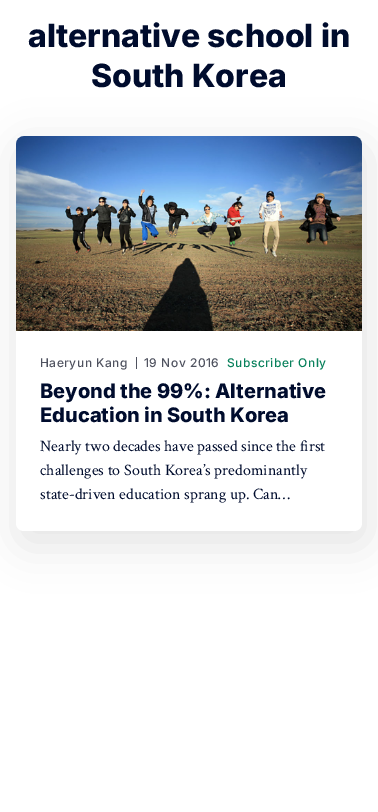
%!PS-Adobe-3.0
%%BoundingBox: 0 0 378 812
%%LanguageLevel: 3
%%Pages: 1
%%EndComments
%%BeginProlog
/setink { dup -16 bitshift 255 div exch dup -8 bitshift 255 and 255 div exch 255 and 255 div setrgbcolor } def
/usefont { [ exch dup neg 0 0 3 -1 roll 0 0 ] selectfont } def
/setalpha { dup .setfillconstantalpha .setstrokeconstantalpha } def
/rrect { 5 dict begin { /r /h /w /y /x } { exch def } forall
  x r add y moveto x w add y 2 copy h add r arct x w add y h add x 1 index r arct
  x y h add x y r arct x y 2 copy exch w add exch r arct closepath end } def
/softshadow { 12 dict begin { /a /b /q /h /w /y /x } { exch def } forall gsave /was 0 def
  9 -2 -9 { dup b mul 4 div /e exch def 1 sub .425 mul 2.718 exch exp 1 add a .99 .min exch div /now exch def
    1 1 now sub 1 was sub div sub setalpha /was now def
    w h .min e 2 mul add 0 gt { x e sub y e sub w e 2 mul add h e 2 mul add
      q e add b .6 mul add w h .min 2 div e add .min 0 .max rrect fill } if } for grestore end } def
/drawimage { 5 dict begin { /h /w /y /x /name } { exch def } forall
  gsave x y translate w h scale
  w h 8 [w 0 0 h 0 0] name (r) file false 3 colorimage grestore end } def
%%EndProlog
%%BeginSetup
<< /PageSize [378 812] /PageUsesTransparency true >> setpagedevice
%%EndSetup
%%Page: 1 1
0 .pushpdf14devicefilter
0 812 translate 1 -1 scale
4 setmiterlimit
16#FFFFFF setink
0 0 378 812 rectfill
/Inter-ExtraBold 32 usefont
16#000C2D setink
28 47 moveto (alternative school in) show
91 87 moveto (South Korea) show
16#000000 setink
14 142 358 407 14 20 0.09 softshadow
(img1.raw) 16 136 346 195 drawimage
16#FFFFFF setink
16 331 moveto 362 331 lineto 362 523 lineto 362 527.5 358.5 531 354 531 curveto 24 531 lineto 19.5 531 16 527.5 16 523 curveto closepath fill
/Inter-Medium 12 usefont
16#4F525F setink
40 367 moveto 0.5 0 (Haeryun Kang) ashow
136 357 1 12 rectfill
144 367 moveto 0.5 0 (19 Nov 2016) ashow
16#09815C setink
227 367 moveto 0.5 0 (Subscriber Only) ashow
/Inter-ExtraBold 20 usefont
16#000C2D setink
40 398 moveto (Beyond the 99%: Alternative) show
40 422 moveto (Education in South Korea) show
/CrimsonText-Regular 16 usefont
[
    [(Nearly two decades have passed since the first) 40 451]
    [(challenges to South Korea’s predominantly) 40 475]
    [(state-driven education sprang up. Can…) 40 499]
] { aload pop moveto show } forall
.poppdf14devicefilter showpage
%%EOF
